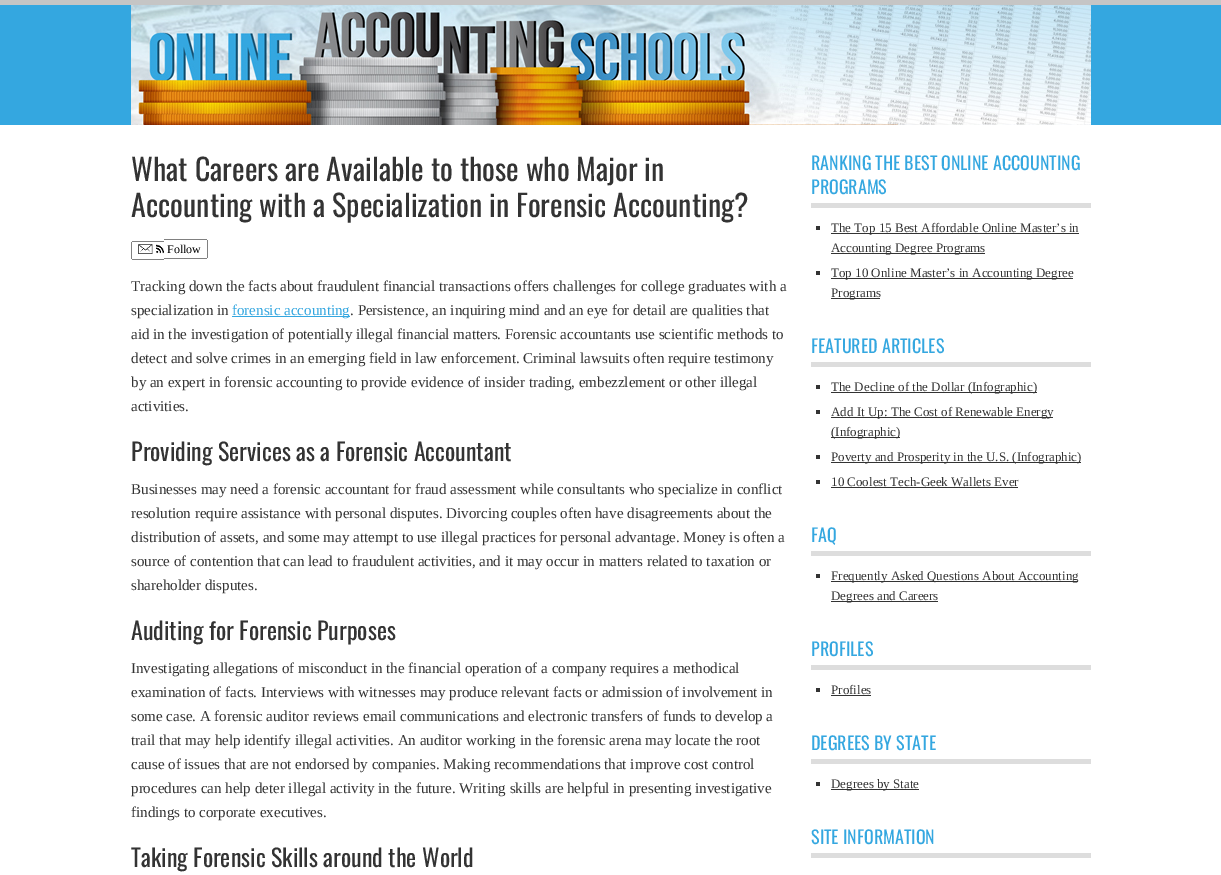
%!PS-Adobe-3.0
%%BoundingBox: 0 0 1221 875
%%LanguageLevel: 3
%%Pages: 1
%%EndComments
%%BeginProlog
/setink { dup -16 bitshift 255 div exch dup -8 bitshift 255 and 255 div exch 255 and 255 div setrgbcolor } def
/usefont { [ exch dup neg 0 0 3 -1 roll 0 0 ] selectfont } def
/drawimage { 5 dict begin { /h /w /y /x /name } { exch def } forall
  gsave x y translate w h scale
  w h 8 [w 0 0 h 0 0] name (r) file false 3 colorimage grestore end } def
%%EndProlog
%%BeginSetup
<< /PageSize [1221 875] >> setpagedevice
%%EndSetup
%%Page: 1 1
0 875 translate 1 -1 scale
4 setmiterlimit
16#34A7E0 setink
0 0 1221 875 rectfill
16#C5C5C5 setink
0 0 1221 5 rectfill
(img1.raw) 131 5 960 120 drawimage
16#FFFFFF setink
0 125 1221 750 rectfill
/Oswald-Regular 30 usefont
16#333333 setink
131 181 moveto (What Careers are Available to those who Major in) show
131 217 moveto (Accounting with a Specialization in Forensic Accounting?) show
(img2.raw) 138 244 26 10 drawimage
/LiberationSerif-Regular 12 usefont
16#000000 setink
167 253 moveto (Follow) show
[
    [132 241 32 1 16#808080]
    [132 259 32 1 16#808080]
    [131 242 1 17 16#808080]
    [164 239 43 1 16#808080]
    [207 240 1 18 16#808080]
    [164 258 43 1 16#808080]
] { aload pop setink rectfill } forall
gsave
131 237 660 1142 rectclip
/LiberationSerif-Regular 15 usefont
16#333333 setink
131 291 moveto (Tracking down the facts about fraudulent financial transactions offers challenges for college graduates with a) show
grestore
/LiberationSerif-Regular 15 usefont
16#333333 setink
131 315 moveto (specialization in) show
16#34A7E0 setink
232 316 118 1 rectfill
232 315 moveto (forensic accounting) show
16#333333 setink
[
    [(. Persistence, an inquiring mind and an eye for detail are qualities that) 350 315]
    [(aid in the investigation of potentially illegal financial matters. Forensic accountants use scientific methods to) 131 339]
    [(detect and solve crimes in an emerging field in law enforcement. Criminal lawsuits often require testimony) 131 363]
    [(by an expert in forensic accounting to provide evidence of insider trading, embezzlement or other illegal) 131 387]
    [(activities.) 131 411]
] { aload pop moveto show } forall
/Oswald-Regular 24 usefont
131 461 moveto (Providing Services as a Forensic Accountant) show
/LiberationSerif-Regular 15 usefont
[
    [(Businesses may need a forensic accountant for fraud assessment while consultants who specialize in conflict) 131 494]
    [(resolution require assistance with personal disputes. Divorcing couples often have disagreements about the) 131 518]
    [(distribution of assets, and some may attempt to use illegal practices for personal advantage. Money is often a) 131 542]
    [(source of contention that can lead to fraudulent activities, and it may occur in matters related to taxation or) 131 566]
    [(shareholder disputes.) 131 590]
] { aload pop moveto show } forall
/Oswald-Regular 24 usefont
131 640 moveto (Auditing for Forensic Purposes) show
/LiberationSerif-Regular 15 usefont
[
    [(Investigating allegations of misconduct in the financial operation of a company requires a methodical) 131 673]
    [(examination of facts. Interviews with witnesses may produce relevant facts or admission of involvement in) 131 697]
    [(some case. A forensic auditor reviews email communications and electronic transfers of funds to develop a) 131 721]
    [(trail that may help identify illegal activities. An auditor working in the forensic arena may locate the root) 131 745]
    [(cause of issues that are not endorsed by companies. Making recommendations that improve cost control) 131 769]
    [(procedures can help deter illegal activity in the future. Writing skills are helpful in presenting investigative) 131 793]
    [(findings to corporate executives.) 131 817]
] { aload pop moveto show } forall
gsave
131 237 660 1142 rectclip
/Oswald-Regular 24 usefont
131 867 moveto (Taking Forensic Skills around the World) show
grestore
16#DDDDDD setink
811 203 280 5 rectfill
/Oswald-Regular 18 usefont
16#34A7E0 setink
811 170 moveto (RANKING THE BEST ONLINE ACCOUNTING) show
811 194 moveto (PROGRAMS) show
16#333333 setink
816 226 4 4 rectfill
831 233 248 1 rectfill
/LiberationSerif-Regular 13 usefont
831 232 moveto (The Top 15 Best Affordable Online Master’s in) show
831 253 154 1 rectfill
831 252 moveto (Accounting Degree Programs) show
816 271 4 4 rectfill
831 278 242 1 rectfill
831 277 moveto (Top 10 Online Master’s in Accounting Degree) show
831 298 49 1 rectfill
831 297 moveto (Programs) show
16#DDDDDD setink
811 362 280 5 rectfill
/Oswald-Regular 18 usefont
16#34A7E0 setink
811 353 moveto (FEATURED ARTICLES) show
16#333333 setink
816 385 4 4 rectfill
831 392 206 1 rectfill
/LiberationSerif-Regular 13 usefont
831 391 moveto (The Decline of the Dollar \(Infographic\)) show
816 410 4 4 rectfill
831 417 222 1 rectfill
831 416 moveto (Add It Up: The Cost of Renewable Energy) show
831 437 69 1 rectfill
831 436 moveto (\(Infographic\)) show
816 455 4 4 rectfill
831 462 250 1 rectfill
831 461 moveto (Poverty and Prosperity in the U.S. \(Infographic\)) show
816 480 4 4 rectfill
831 486 moveto (10 Coolest Tech-Geek Wallets Ever) show
831 487 187 1 rectfill
16#DDDDDD setink
811 551 280 5 rectfill
/Oswald-Regular 18 usefont
16#34A7E0 setink
811 542 moveto (FAQ) show
16#333333 setink
816 574 4 4 rectfill
831 581 247 1 rectfill
/LiberationSerif-Regular 13 usefont
831 580 moveto (Frequently Asked Questions About Accounting) show
831 601 107 1 rectfill
831 600 moveto (Degrees and Careers) show
16#DDDDDD setink
811 665 280 5 rectfill
/Oswald-Regular 18 usefont
16#34A7E0 setink
811 656 moveto (PROFILES) show
16#333333 setink
816 688 4 4 rectfill
/LiberationSerif-Regular 13 usefont
831 694 moveto (Profiles) show
831 695 40 1 rectfill
16#DDDDDD setink
811 759 280 5 rectfill
/Oswald-Regular 18 usefont
16#34A7E0 setink
811 750 moveto (DEGREES BY STATE) show
16#333333 setink
816 782 4 4 rectfill
831 789 88 1 rectfill
/LiberationSerif-Regular 13 usefont
831 788 moveto (Degrees by State) show
16#DDDDDD setink
811 853 280 5 rectfill
/Oswald-Regular 18 usefont
16#34A7E0 setink
811 844 moveto (SITE INFORMATION) show
showpage
%%EOF
